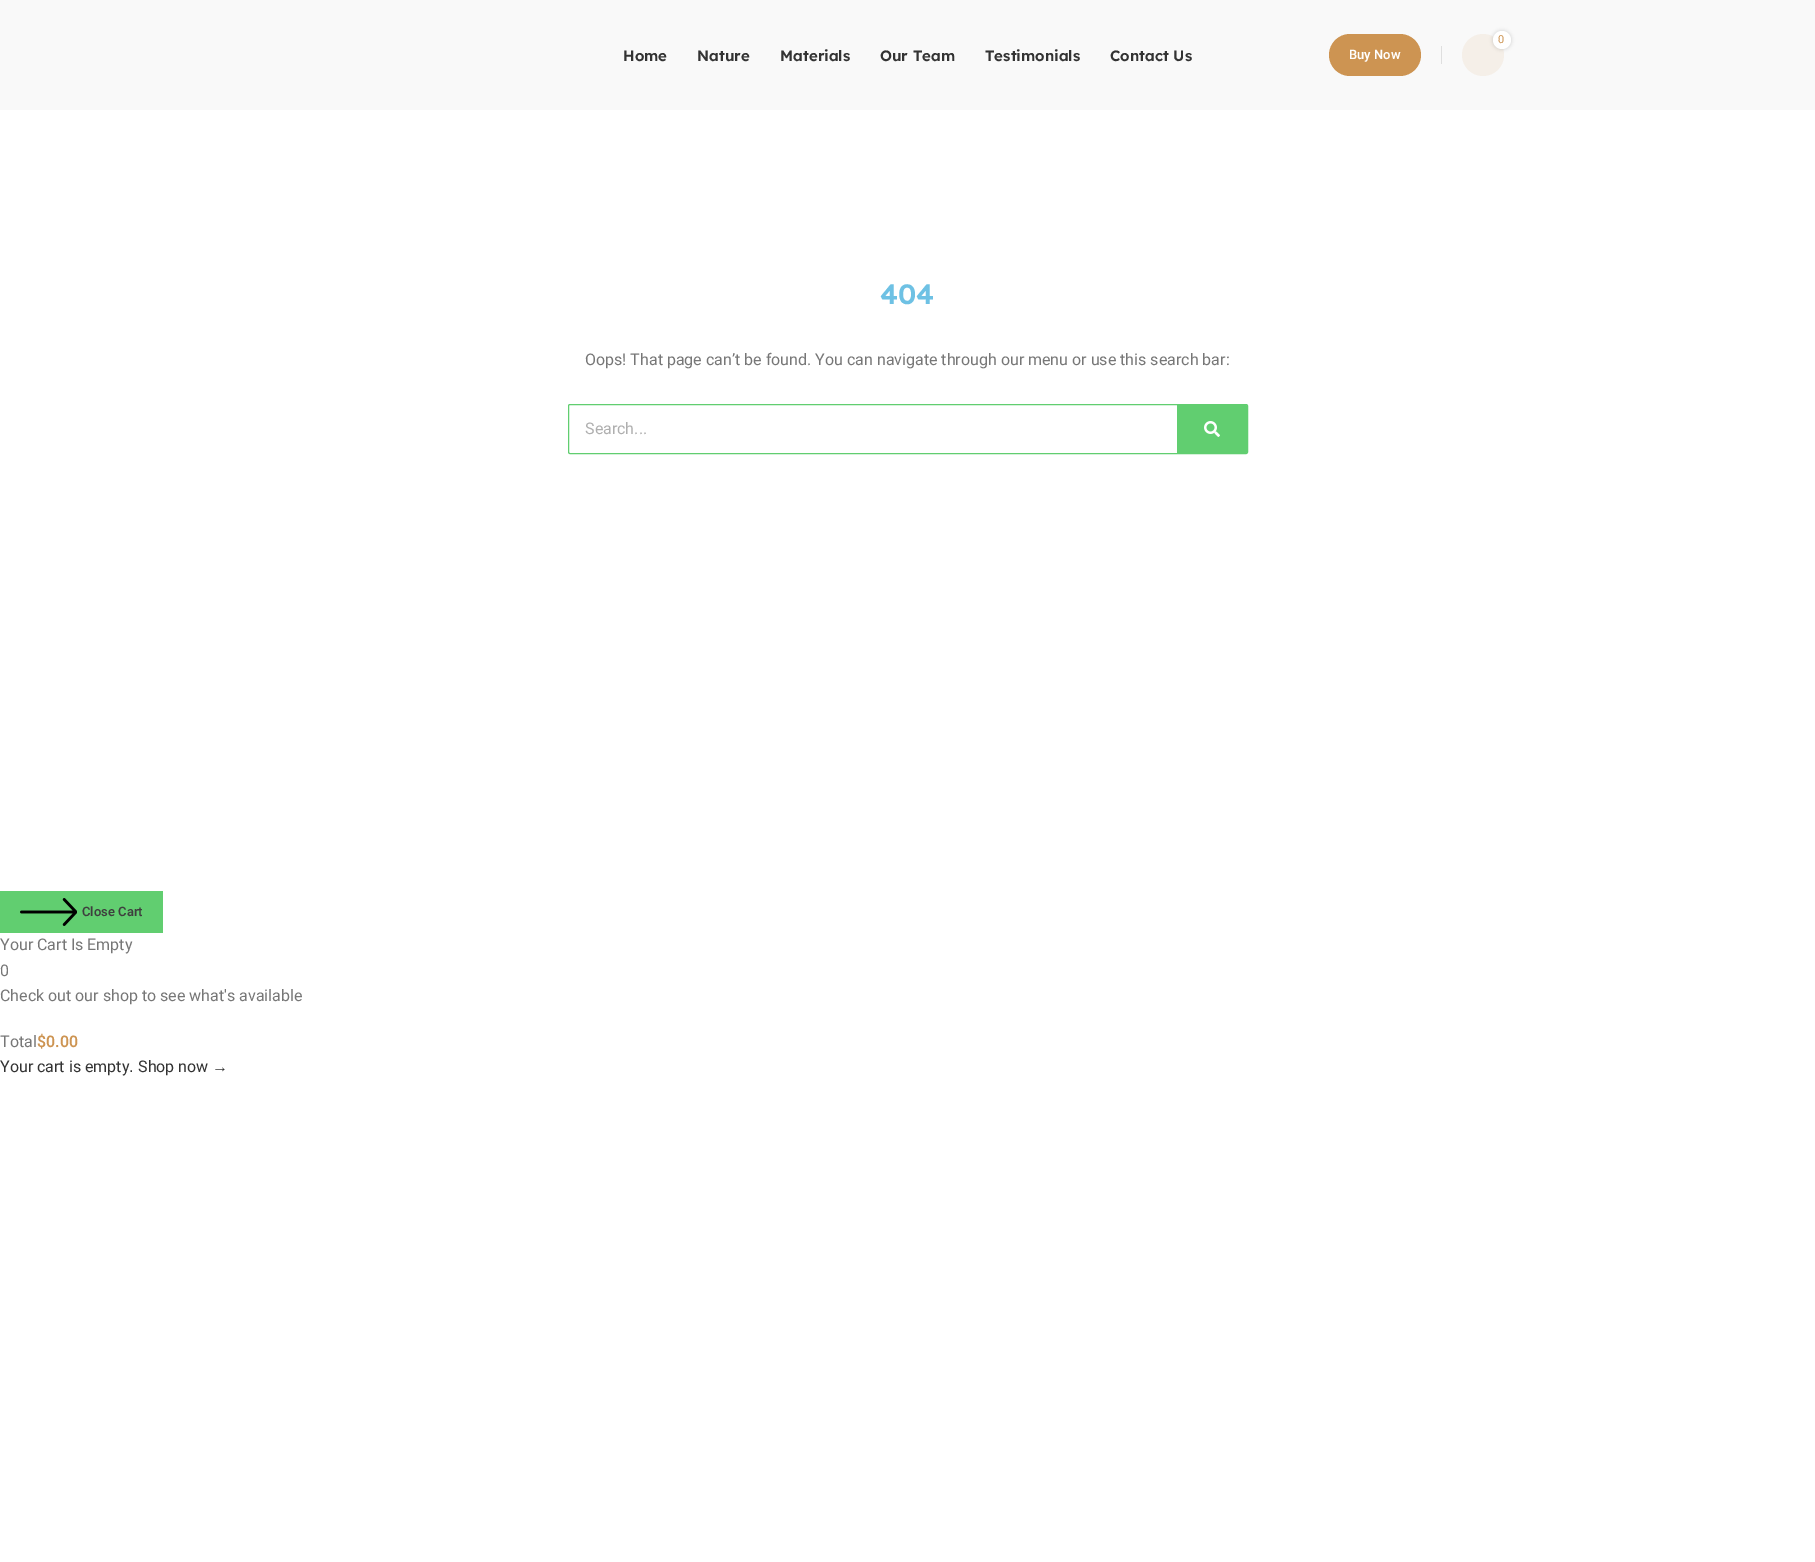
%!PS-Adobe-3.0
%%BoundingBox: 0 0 1815 1562
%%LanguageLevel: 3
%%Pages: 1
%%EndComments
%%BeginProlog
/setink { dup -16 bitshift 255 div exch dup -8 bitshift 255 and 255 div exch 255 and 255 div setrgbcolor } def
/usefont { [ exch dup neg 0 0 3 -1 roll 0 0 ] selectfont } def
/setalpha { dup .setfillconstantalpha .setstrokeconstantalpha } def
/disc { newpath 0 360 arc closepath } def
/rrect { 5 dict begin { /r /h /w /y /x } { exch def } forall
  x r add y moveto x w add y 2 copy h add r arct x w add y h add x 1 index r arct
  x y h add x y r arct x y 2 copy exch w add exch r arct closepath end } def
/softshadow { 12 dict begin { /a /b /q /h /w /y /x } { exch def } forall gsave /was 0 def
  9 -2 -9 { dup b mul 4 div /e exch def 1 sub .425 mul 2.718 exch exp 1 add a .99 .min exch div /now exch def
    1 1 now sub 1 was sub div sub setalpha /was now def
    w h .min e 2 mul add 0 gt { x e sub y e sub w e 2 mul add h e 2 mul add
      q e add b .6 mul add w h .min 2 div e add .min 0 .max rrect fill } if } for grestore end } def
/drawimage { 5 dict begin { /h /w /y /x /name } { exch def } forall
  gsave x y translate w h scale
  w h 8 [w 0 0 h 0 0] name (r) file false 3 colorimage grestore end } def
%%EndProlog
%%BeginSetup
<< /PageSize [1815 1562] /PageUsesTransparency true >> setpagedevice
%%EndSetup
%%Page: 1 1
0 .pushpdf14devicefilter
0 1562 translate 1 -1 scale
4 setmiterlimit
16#FFFFFF setink
0 0 1815 1562 rectfill
16#F9F9F9 setink
0 0 1815 110 rectfill
/Lexend-SemiBold 15 usefont
16#333333 setink
[
    [(Home) 623 61]
    [(Nature) 697 61]
    [(Materials) 780 61]
    [(Our Team) 880 61]
    [(Testimonials) 985 61]
    [(Contact Us) 1110 61]
] { aload pop moveto show } forall
16#F5EFE8 setink
1483 55 21 disc fill
16#000000 setink
1493 31 18 18 9 2 0.17 softshadow
16#FFFFFF setink
1502 40 9 disc fill
/Heebo-Regular 11 usefont
16#CD9452 setink
1498 43 moveto (0) show
1329 34 92 42 21 rrect fill
/Heebo-SemiBold 13 usefont
16#FFFFFF setink
1349 59 moveto (Buy Now) show
16#DFDFDF setink
1441 46 1 18 rectfill
/Lexend-SemiBold 28 usefont
16#6EC1E4 setink
880 304 moveto (404) show
/Heebo-Regular 16 usefont
16#777777 setink
585 365 moveto (Oops! That page can’t be found. You can navigate through our menu or use this search bar:) show
16#61CE70 setink
568.5 404.5 679 49 1.5 rrect stroke
/Roboto-Regular 16 usefont
16#AFAFAF setink
585 434 moveto (Search...) show
16#61CE70 setink
1177 405 moveto 1246 405 lineto 1246.5 405 1247 405.5 1247 406 curveto 1247 452 lineto 1247 452.5 1246.5 453 1246 453 curveto 1177 453 lineto closepath fill
(img1.raw) 1204 421 16 16 drawimage
0 891 163 42 rectfill
(img2.raw) 20 898 57 28 drawimage
/Heebo-SemiBold 13 usefont
16#3E3E3E setink
82 916 moveto (Close Cart) show
/Heebo-Regular 16 usefont
16#777777 setink
[
    [(Your Cart Is Empty) 0 950]
    [(0) 0 976]
    [(Check out our shop to see what's available) 0 1001]
    [(Total) 0 1047]
] { aload pop moveto show } forall
/Heebo-SemiBold 16 usefont
16#CD9452 setink
37 1047 moveto ($0.00) show
/Heebo-Regular 16 usefont
16#333333 setink
0 1072 moveto (Your cart is empty) show
/LiberationSans-Regular 16 usefont
129 1072 moveto (.) show
/Heebo-Regular 16 usefont
138 1072 moveto (Shop now) show
/LiberationSans-Regular 16 usefont
212 1072 moveto (→) show
.poppdf14devicefilter showpage
%%EOF
